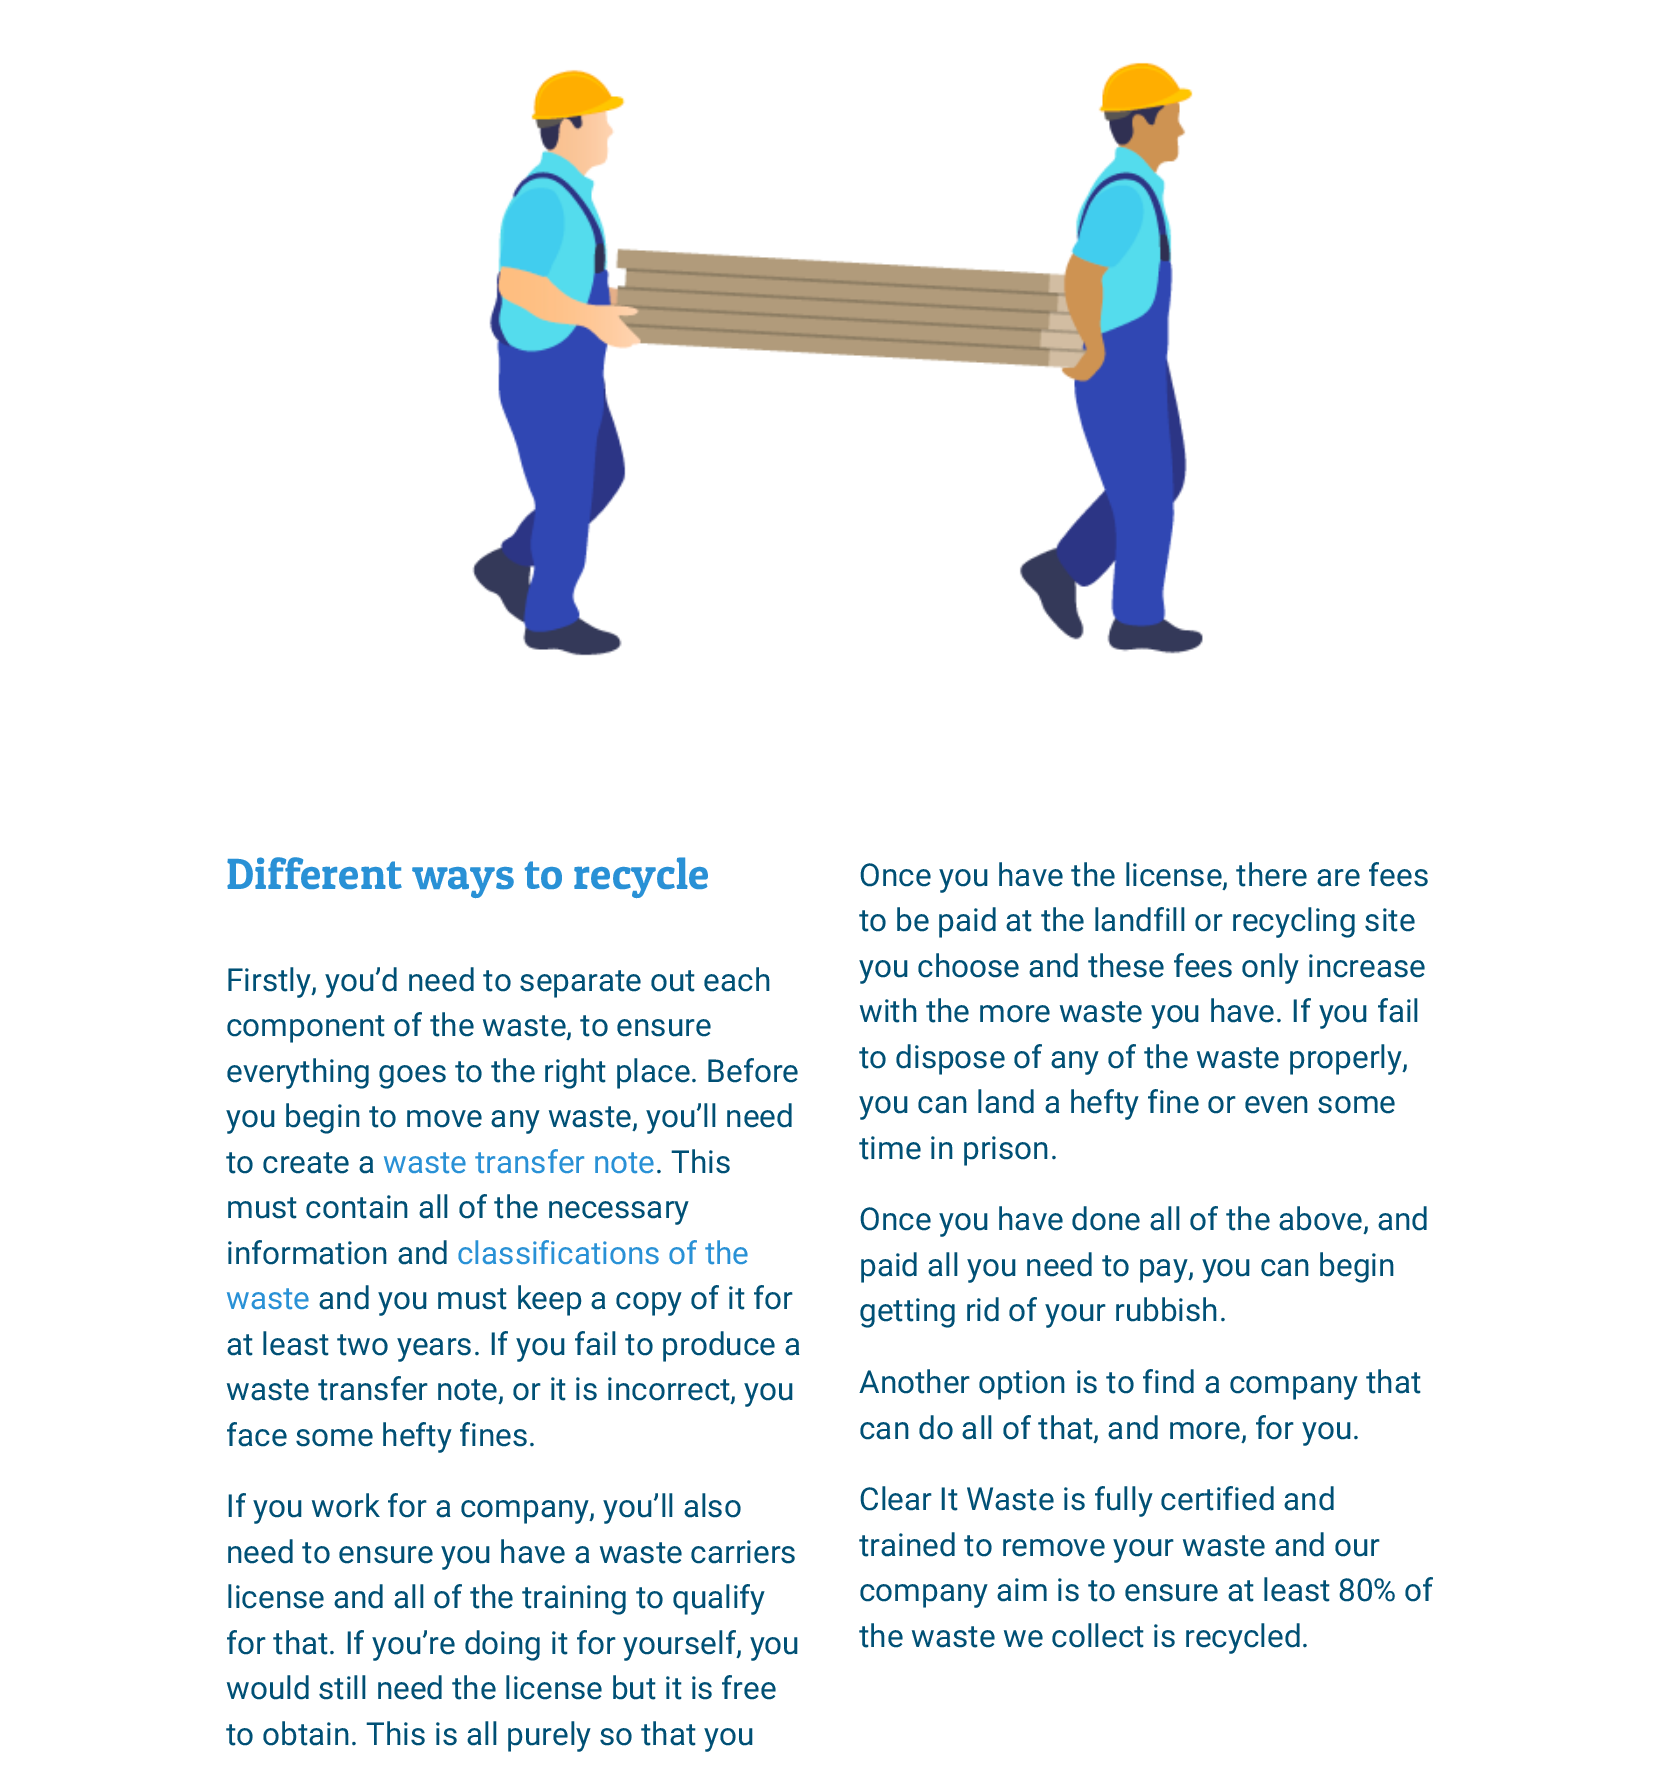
%!PS-Adobe-3.0
%%BoundingBox: 0 0 1666 1784
%%LanguageLevel: 3
%%Pages: 1
%%EndComments
%%BeginProlog
/setink { dup -16 bitshift 255 div exch dup -8 bitshift 255 and 255 div exch 255 and 255 div setrgbcolor } def
/usefont { [ exch dup neg 0 0 3 -1 roll 0 0 ] selectfont } def
/drawimage { 5 dict begin { /h /w /y /x /name } { exch def } forall
  gsave x y translate w h scale
  w h 8 [w 0 0 h 0 0] name (r) file false 3 colorimage grestore end } def
%%EndProlog
%%BeginSetup
<< /PageSize [1666 1784] >> setpagedevice
%%EndSetup
%%Page: 1 1
0 1784 translate 1 -1 scale
4 setmiterlimit
16#FFFFFF setink
0 0 1666 1784 rectfill
(img1.raw) 472 62 731 594 drawimage
/PatuaOne-Regular 43.75 usefont
16#2991D6 setink
226 889 moveto (Different ways to recycle) show
/Roboto-Regular 31.5 usefont
16#005075 setink
[
    [(Firstly, you’d need to separate out each) 226 991]
    [(component of the waste, to ensure) 226 1036]
    [(everything goes to the right place. Before) 226 1082]
    [(you begin to move any waste, you’ll need) 226 1127]
    [(to create a) 226 1173]
] { aload pop moveto show } forall
16#2991D6 setink
383 1173 moveto (waste transfer note) show
16#005075 setink
[
    [(. This) 655 1173]
    [(must contain all of the necessary) 226 1218]
    [(information and) 226 1264]
] { aload pop moveto show } forall
16#2991D6 setink
457 1264 moveto (classifications of the) show
226 1309 moveto (waste) show
16#005075 setink
[
    [(and you must keep a copy of it for) 318 1309]
    [(at least two years. If you fail to produce a) 226 1355]
    [(waste transfer note, or it is incorrect, you) 226 1400]
    [(face some hefty fines.) 226 1446]
    [(If you work for a company, you’ll also) 226 1517]
    [(need to ensure you have a waste carriers) 226 1563]
    [(license and all of the training to qualify) 226 1608]
    [(for that. If you’re doing it for yourself, you) 226 1654]
    [(would still need the license but it is free) 226 1699]
    [(to obtain. This is all purely so that you) 226 1745]
    [(Once you have the license, there are fees) 859 886]
    [(to be paid at the landfill or recycling site) 859 931]
    [(you choose and these fees only increase) 859 977]
    [(with the more waste you have. If you fail) 859 1022]
    [(to dispose of any of the waste properly,) 859 1068]
    [(you can land a hefty fine or even some) 859 1113]
    [(time in prison.) 859 1159]
    [(Once you have done all of the above, and) 859 1230]
    [(paid all you need to pay, you can begin) 859 1276]
    [(getting rid of your rubbish.) 859 1321]
    [(Another option is to find a company that) 859 1393]
    [(can do all of that, and more, for you.) 859 1439]
    [(Clear It Waste is fully certified and) 859 1510]
    [(trained to remove your waste and our) 859 1556]
    [(company aim is to ensure at least 80% of) 859 1601]
    [(the waste we collect is recycled.) 859 1647]
] { aload pop moveto show } forall
showpage
%%EOF
